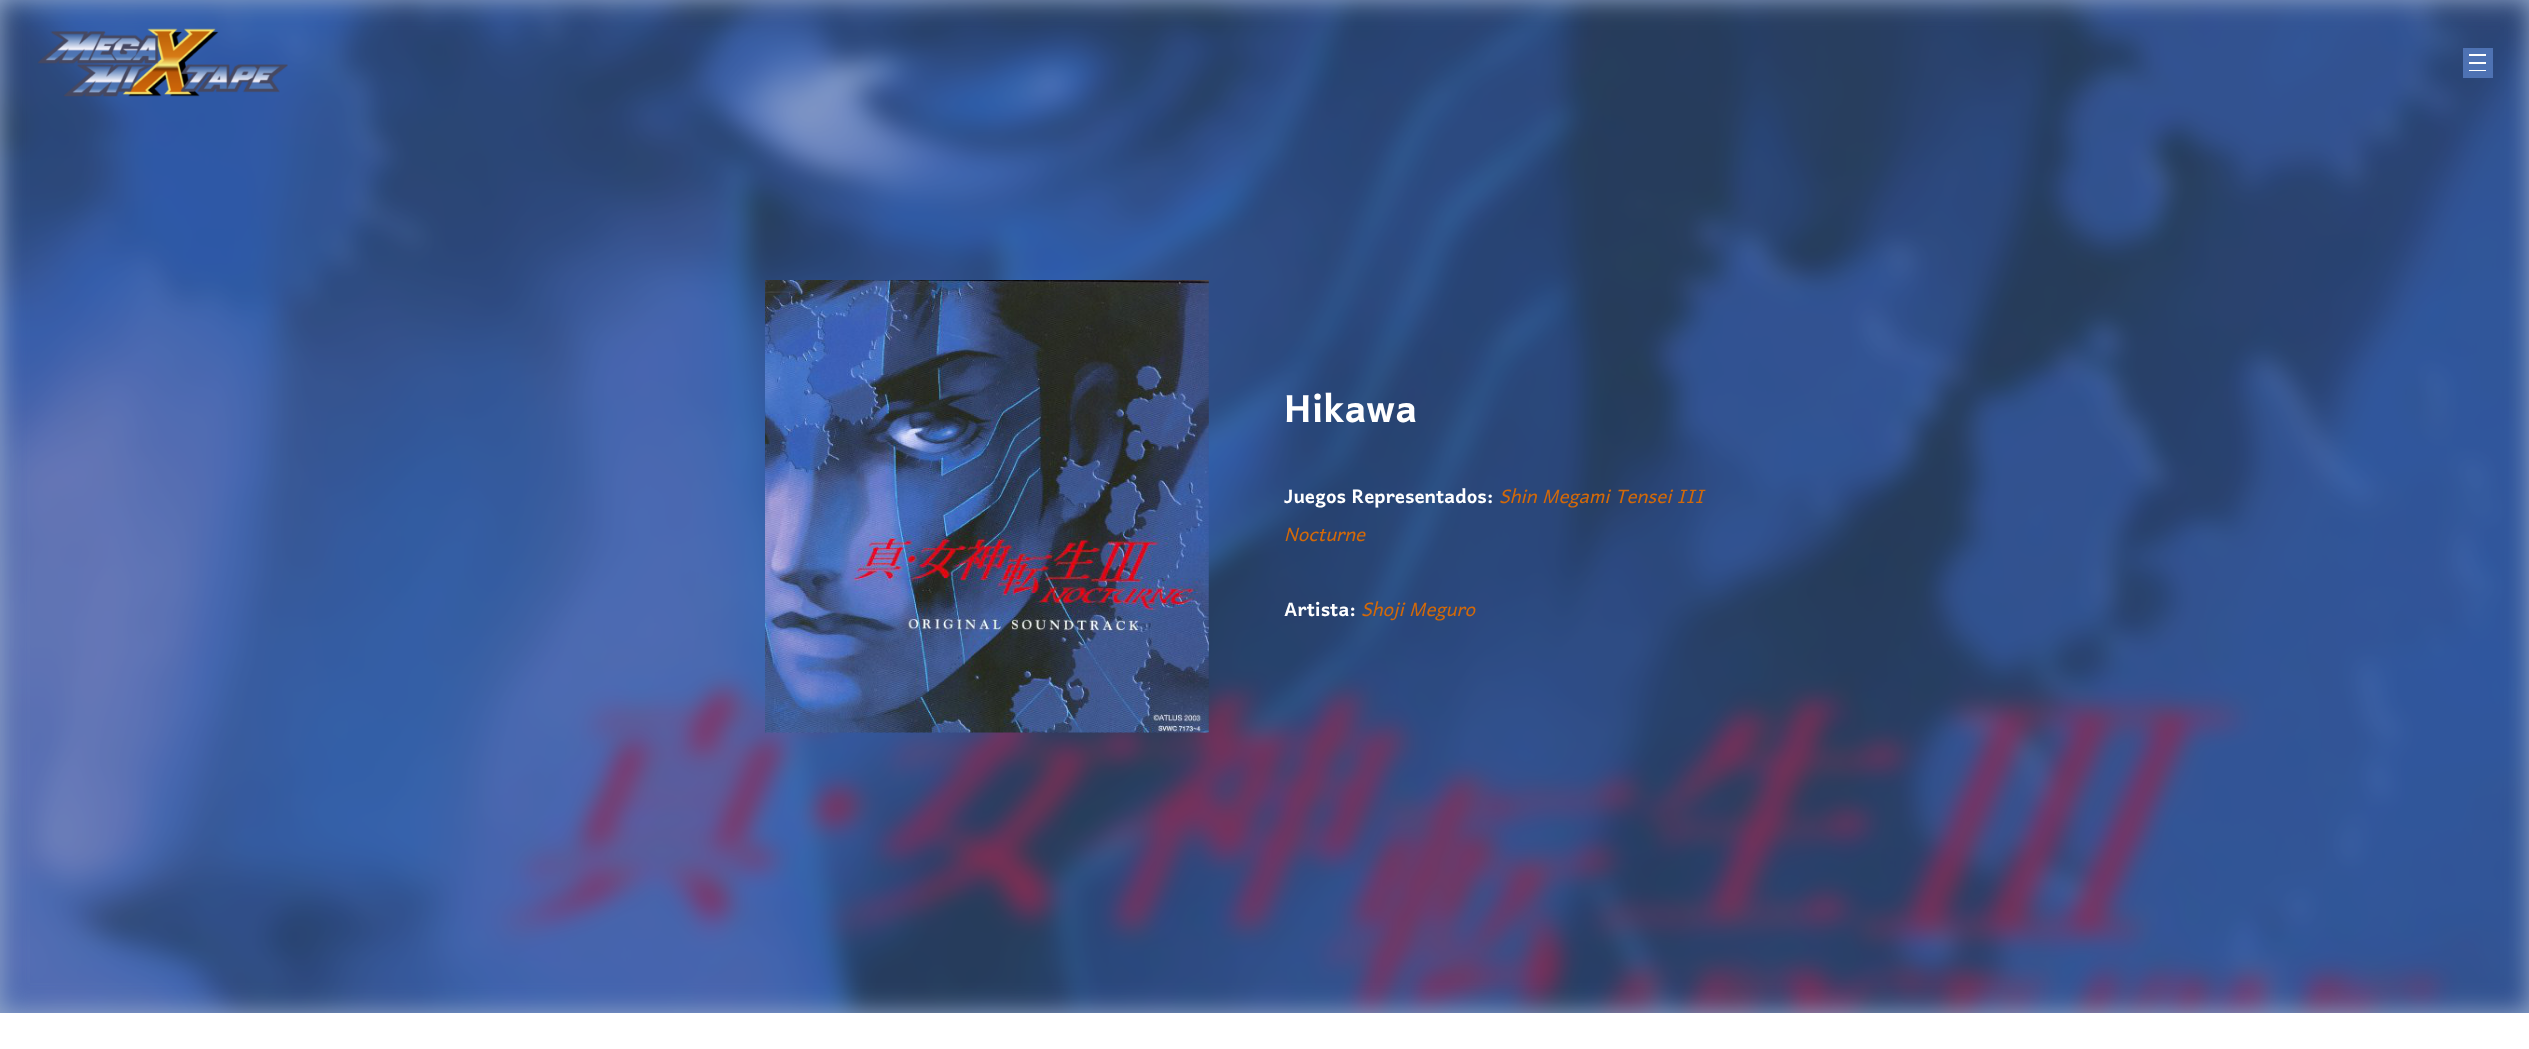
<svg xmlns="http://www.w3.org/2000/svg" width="2529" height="1049">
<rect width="100%" height="100%" fill="#92a7ca"/>
<image x="0" y="0" width="2529" height="1013" href="media/2.png"/>
<image x="37" y="28" width="251" height="69" href="media/1.png"/>
<rect x="2463" y="48" width="30" height="30" fill="#4e72b3"/>
<rect x="2469" y="54" width="17" height="2" fill="#fff"/>
<rect x="2469" y="62" width="17" height="2" fill="#fff"/>
<rect x="2469" y="70" width="17" height="1" fill="#fff"/>
<image x="765" y="280" width="444" height="453" href="media/3.png"/>
<text x="1284" y="422" style="font-family:Harmattan;font-size:50px;font-weight:bold;fill:#fff">Hikawa</text>
<text x="1284" y="503" style="font-family:Harmattan;font-size:25px;font-weight:bold;fill:#fff">Juegos Representados:</text>
<text x="1499" y="503" style="font-family:Harmattan;font-size:25px;font-style:italic;fill:#d26909">Shin Megami Tensei III</text>
<text x="1284" y="541" style="font-family:Harmattan;font-size:25px;font-style:italic;fill:#d26909">Nocturne</text>
<text x="1284" y="616" style="font-family:Harmattan;font-size:25px;font-weight:bold;fill:#fff">Artista:</text>
<text x="1361" y="616" style="font-family:Harmattan;font-size:25px;font-style:italic;fill:#d26909">Shoji Meguro</text>
<rect y="1013" width="2529" height="36" fill="#fff"/>
</svg>
